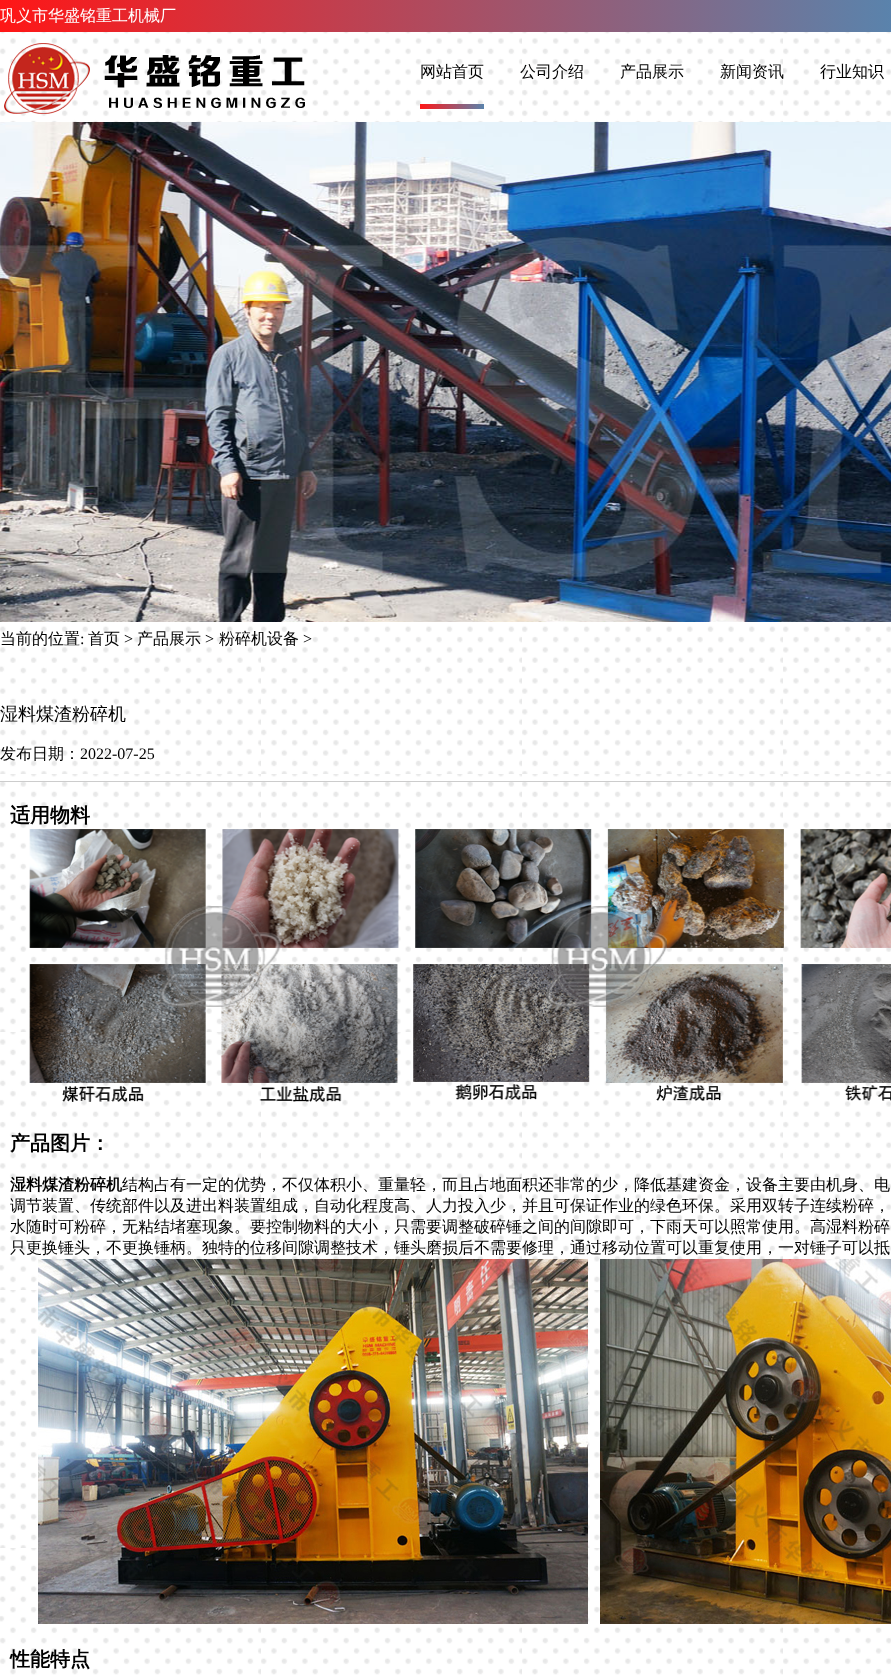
<svg xmlns="http://www.w3.org/2000/svg" width="891" height="1678">
<defs>
<linearGradient id="g1" gradientUnits="userSpaceOnUse" x1="0" y1="16" x2="891" y2="16"><stop offset="0" stop-color="#ff1616"/><stop offset="1" stop-color="#5a83ac"/></linearGradient>
<linearGradient id="g2" gradientUnits="userSpaceOnUse" x1="420" y1="107" x2="484" y2="107"><stop offset="0" stop-color="#ff1616"/><stop offset="1" stop-color="#5a83ac"/></linearGradient>
</defs>
<rect width="100%" height="100%" fill="#fff"/>
<image x="0" y="32" width="891" height="1643" href="media/1.png"/>
<rect width="891" height="32" fill="url(#g1)"/>
<text x="0" y="21" style="font-family:WenQuanYi Zen Hei;font-size:16px;font-weight:500;fill:#fff">巩义市华盛铭重工机械厂</text>
<image x="4" y="43" width="301" height="71" href="media/2.png"/>
<text x="420" y="77" style="font-family:WenQuanYi Zen Hei;font-size:16px;font-weight:500;fill:#000">网站首页</text>
<rect x="420" y="104" width="64" height="5" fill="url(#g2)"/>
<text x="520" y="77" style="font-family:WenQuanYi Zen Hei;font-size:16px;font-weight:500;fill:#000">公司介绍</text>
<text x="620" y="77" style="font-family:WenQuanYi Zen Hei;font-size:16px;font-weight:500;fill:#000">产品展示</text>
<text x="720" y="77" style="font-family:WenQuanYi Zen Hei;font-size:16px;font-weight:500;fill:#000">新闻资讯</text>
<text x="820" y="77" style="font-family:WenQuanYi Zen Hei;font-size:16px;font-weight:500;fill:#000">行业知识</text>
<image x="0" y="122" width="891" height="500" href="media/3.png"/>
<text x="0" y="644" style="font-family:WenQuanYi Zen Hei;font-size:16px;font-weight:500;fill:#000">当前的位置</text>
<text x="80" y="644" style="font-family:Liberation Serif;font-size:16px;fill:#000">:</text>
<text x="88" y="644" style="font-family:WenQuanYi Zen Hei;font-size:16px;font-weight:500;fill:#000">首页</text>
<text x="124" y="644" style="font-family:Liberation Serif;font-size:16px;fill:#000">&gt;</text>
<text x="137" y="644" style="font-family:WenQuanYi Zen Hei;font-size:16px;font-weight:500;fill:#000">产品展示</text>
<text x="205" y="644" style="font-family:Liberation Serif;font-size:16px;fill:#000">&gt;</text>
<text x="219" y="644" style="font-family:WenQuanYi Zen Hei;font-size:16px;font-weight:500;fill:#000">粉碎机设备</text>
<text x="303" y="644" style="font-family:Liberation Serif;font-size:16px;fill:#000">&gt;</text>
<rect y="781" width="891" height="1" fill="#ccc"/>
<text x="0" y="720" style="font-family:WenQuanYi Zen Hei;font-size:18px;font-weight:500;fill:#000">湿料煤渣粉碎机</text>
<text x="0" y="759" style="font-family:WenQuanYi Zen Hei;font-size:16px;font-weight:500;fill:#000">发布日期：</text>
<text x="80" y="759" style="font-family:Liberation Serif;font-size:16px;fill:#000">2022-07-25</text>
<text x="10" y="822" style="font-family:WenQuanYi Zen Hei;font-size:20px;font-weight:bold;fill:#000">适用物料</text>
<image x="29" y="829" width="862" height="273" href="media/4.png"/>
<text x="10" y="1150" style="font-family:WenQuanYi Zen Hei;font-size:20px;font-weight:bold;fill:#000">产品图片：</text>
<text x="10" y="1190" style="font-family:WenQuanYi Zen Hei;font-size:16px;font-weight:bold;fill:#000">湿料煤渣粉碎机</text>
<text x="122" y="1190" style="font-family:WenQuanYi Zen Hei;font-size:16px;font-weight:500;fill:#000">结构占有一定的优势，不仅体积小、重量轻，而且占地面积还非常的少，降低基建资金，设备主要由机身、电</text>
<text x="10" y="1211" style="font-family:WenQuanYi Zen Hei;font-size:16px;font-weight:500;fill:#000">调节装置、传统部件以及进出料装置组成，自动化程度高、人力投入少，并且可保证作业的绿色环保。采用双转子连续粉碎，</text>
<text x="10" y="1232" style="font-family:WenQuanYi Zen Hei;font-size:16px;font-weight:500;fill:#000">水随时可粉碎，无粘结堵塞现象。要控制物料的大小，只需要调整破碎锤之间的间隙即可，下雨天可以照常使用。高湿料粉碎</text>
<text x="10" y="1253" style="font-family:WenQuanYi Zen Hei;font-size:16px;font-weight:500;fill:#000">只更换锤头，不更换锤柄。独特的位移间隙调整技术，锤头磨损后不需要修理，通过移动位置可以重复使用，一对锤子可以抵</text>
<image x="38" y="1259" width="550" height="365" href="media/5.png"/>
<image x="600" y="1259" width="291" height="365" href="media/6.png"/>
<text x="10" y="1666" style="font-family:WenQuanYi Zen Hei;font-size:20px;font-weight:bold;fill:#000">性能特点</text>
</svg>
